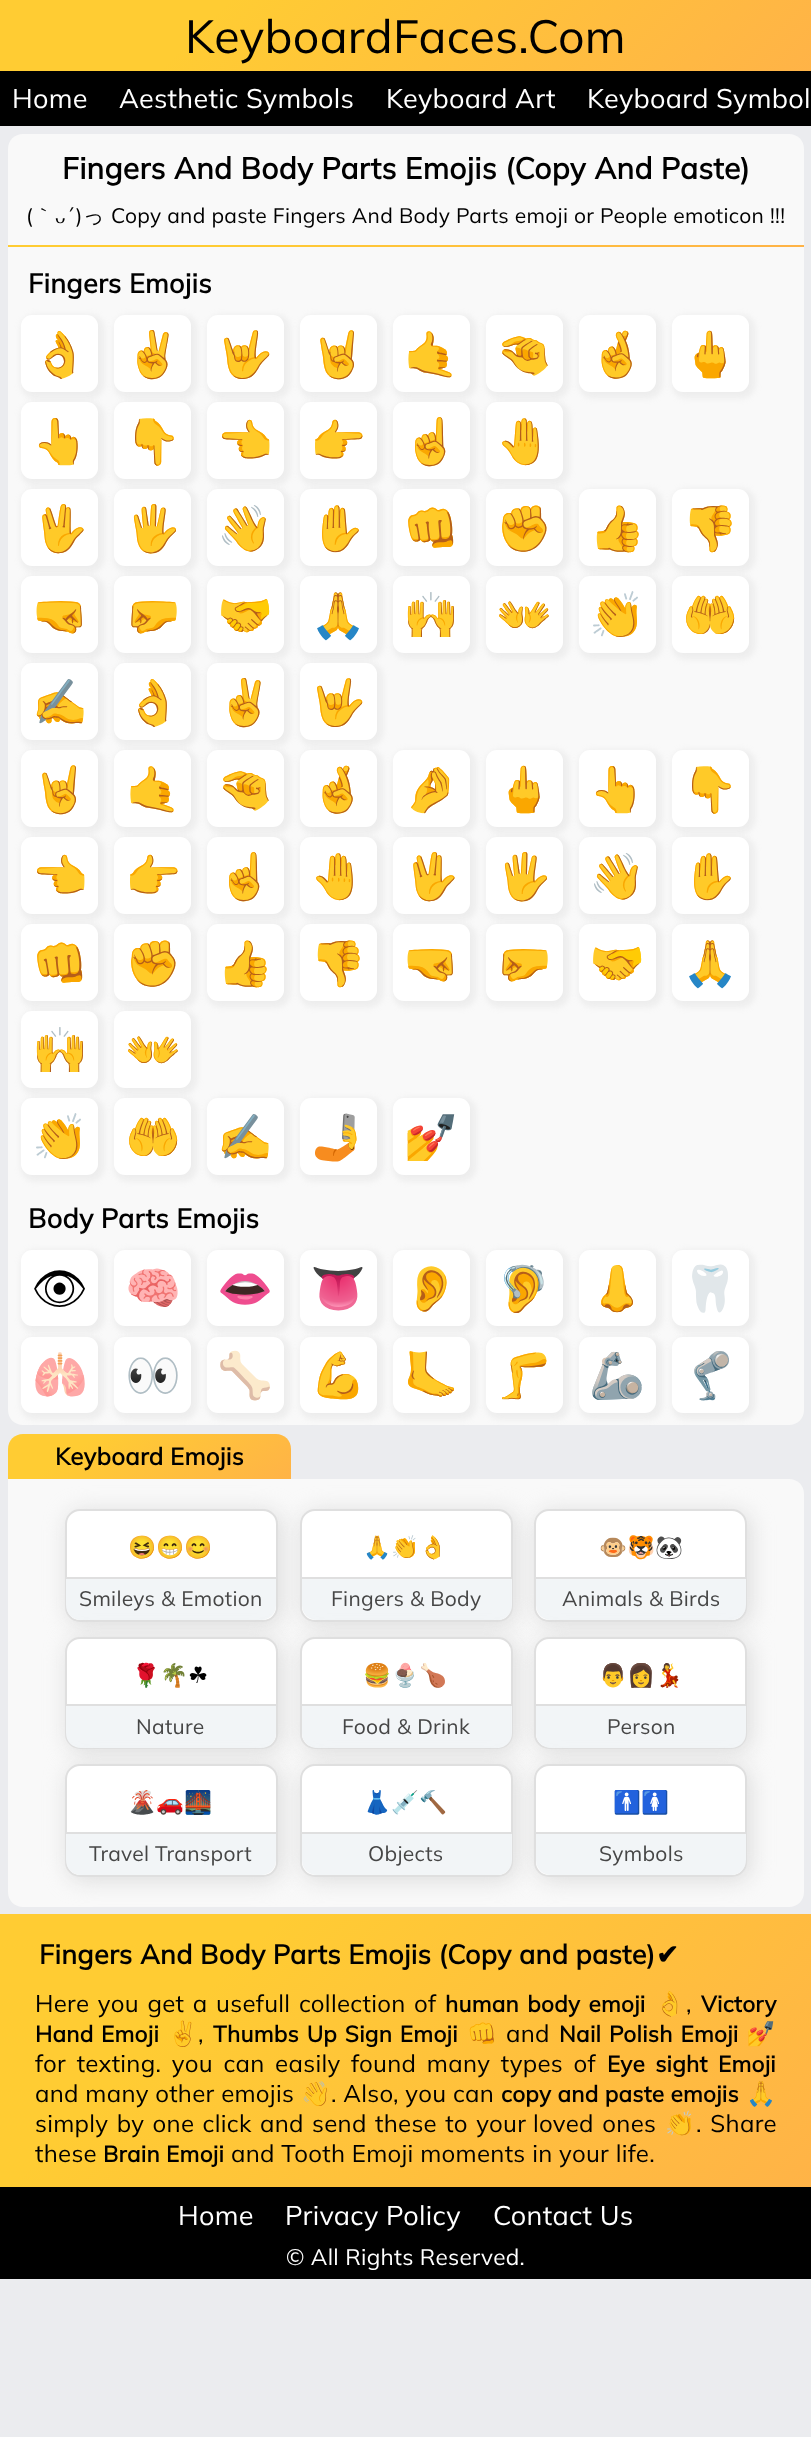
<svg xmlns="http://www.w3.org/2000/svg" width="811" height="2437">
<defs>
<linearGradient id="g1" gradientUnits="userSpaceOnUse" x1="626" y1="256" x2="185" y2="-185"><stop offset="0" stop-color="#ffb347"/><stop offset="0.74" stop-color="#fc3"/></linearGradient>
<linearGradient id="g2" gradientUnits="userSpaceOnUse" x1="605" y1="445" x2="206" y2="46"><stop offset="0" stop-color="#ffb347"/><stop offset="0.74" stop-color="#fc3"/></linearGradient>
<linearGradient id="g3" gradientUnits="userSpaceOnUse" x1="204" y1="1538" x2="94" y2="1375"><stop offset="0" stop-color="#ffb347"/><stop offset="0.74" stop-color="#fc3"/></linearGradient>
<linearGradient id="g4" gradientUnits="userSpaceOnUse" x1="677" y1="2322" x2="135" y2="1779"><stop offset="0" stop-color="#ffb347"/><stop offset="0.74" stop-color="#fc3"/></linearGradient>
</defs>
<rect width="100%" height="100%" fill="#ebecef"/>
<rect width="811" height="71" fill="url(#g1)"/>
<text x="185" y="53" style="font-family:Mulish;font-size:46.5px;font-weight:200;letter-spacing:0.3px;fill:#000">KeyboardFaces.Com</text>
<rect y="71" width="811" height="55" fill="#000"/>
<text x="12" y="108" style="font-family:Mulish;font-size:27px;font-weight:200;letter-spacing:0.3px;fill:#fff">Home</text>
<text x="119" y="108" style="font-family:Mulish;font-size:27px;font-weight:200;letter-spacing:0.3px;fill:#fff">Aesthetic Symbols</text>
<text x="386" y="108" style="font-family:Mulish;font-size:27px;font-weight:200;letter-spacing:0.3px;fill:#fff">Keyboard Art</text>
<text x="587" y="108" style="font-family:Mulish;font-size:27px;font-weight:200;letter-spacing:0.3px;fill:#fff">Keyboard Symbol</text>
<path d="M23 134h766c8.5 0 15 6.5 15 15v52h-796v-52c0-8.5 6.5-15 15-15z" fill="#f9f9f9"/>
<text x="62" y="179" style="font-family:Mulish;font-size:30px;font-weight:bold;letter-spacing:0.3px;fill:#000">Fingers And Body Parts Emojis (Copy And Paste)</text>
<path d="M8 201h796v1209c0 8.5-6.5 15-15 15h-766c-8.5 0-15-6.5-15-15z" fill="#f9f9f9"/>
<text x="26" y="223" style="font-family:Mulish;font-size:21px;font-weight:200;letter-spacing:0.3px;fill:#000">(</text>
<text x="33" y="223" style="font-family:WenQuanYi Zen Hei;font-size:21px;font-weight:500;letter-spacing:0.3px;fill:#000">｀</text>
<text x="65" y="223" style="font-family:Mulish;font-size:21px;font-weight:200;letter-spacing:0.3px;fill:#000">´)</text>
<text x="111" y="223" style="font-family:Mulish;font-size:21px;font-weight:200;letter-spacing:0.3px;fill:#000">Copy and paste Fingers And Body Parts emoji or People emoticon !!!</text>
<text x="55" y="223" style="font-family:Liberation Serif;font-size:21px;letter-spacing:0.3px;fill:#000">ᴗ</text>
<text x="83" y="223" style="font-family:WenQuanYi Zen Hei;font-size:21px;font-weight:500;letter-spacing:0.3px;fill:#000">っ</text>
<rect x="8" y="245" width="796" height="2" fill="url(#g2)"/>
<text x="28" y="293" style="font-family:Mulish;font-size:27px;font-weight:bold;letter-spacing:0.3px;fill:#000">Fingers Emojis</text>
<rect x="21" y="315" width="83" height="83" rx="14" fill="#bfbfbf33" filter="blur(3px)"/>
<rect x="21" y="315" width="77" height="77" rx="11" fill="#fff"/>
<text x="32" y="370" style="font-family:Noto Color Emoji;font-size:45px;letter-spacing:0.3px;fill:#000">👌</text>
<rect x="114" y="315" width="83" height="83" rx="14" fill="#bfbfbf33" filter="blur(3px)"/>
<rect x="114" y="315" width="77" height="77" rx="11" fill="#fff"/>
<text x="125" y="370" style="font-family:Noto Color Emoji;font-size:45px;letter-spacing:0.3px;fill:#000">✌</text>
<rect x="207" y="315" width="83" height="83" rx="14" fill="#bfbfbf33" filter="blur(3px)"/>
<rect x="207" y="315" width="77" height="77" rx="11" fill="#fff"/>
<text x="217" y="370" style="font-family:Noto Color Emoji;font-size:45px;letter-spacing:0.3px;fill:#000">🤟</text>
<rect x="300" y="315" width="83" height="83" rx="14" fill="#bfbfbf33" filter="blur(3px)"/>
<rect x="300" y="315" width="77" height="77" rx="11" fill="#fff"/>
<text x="310" y="370" style="font-family:Noto Color Emoji;font-size:45px;letter-spacing:0.3px;fill:#000">🤘</text>
<rect x="393" y="315" width="83" height="83" rx="14" fill="#bfbfbf33" filter="blur(3px)"/>
<rect x="393" y="315" width="77" height="77" rx="11" fill="#fff"/>
<text x="403" y="370" style="font-family:Noto Color Emoji;font-size:45px;letter-spacing:0.3px;fill:#000">🤙</text>
<rect x="486" y="315" width="83" height="83" rx="14" fill="#bfbfbf33" filter="blur(3px)"/>
<rect x="486" y="315" width="77" height="77" rx="11" fill="#fff"/>
<text x="496" y="370" style="font-family:Noto Color Emoji;font-size:45px;letter-spacing:0.3px;fill:#000">🤏</text>
<rect x="579" y="315" width="83" height="83" rx="14" fill="#bfbfbf33" filter="blur(3px)"/>
<rect x="579" y="315" width="77" height="77" rx="11" fill="#fff"/>
<text x="589" y="370" style="font-family:Noto Color Emoji;font-size:45px;letter-spacing:0.3px;fill:#000">🤞</text>
<rect x="672" y="315" width="83" height="83" rx="14" fill="#bfbfbf33" filter="blur(3px)"/>
<rect x="672" y="315" width="77" height="77" rx="11" fill="#fff"/>
<text x="682" y="370" style="font-family:Noto Color Emoji;font-size:45px;letter-spacing:0.3px;fill:#000">🖕</text>
<rect x="21" y="402" width="83" height="83" rx="14" fill="#bfbfbf33" filter="blur(3px)"/>
<rect x="21" y="402" width="77" height="77" rx="11" fill="#fff"/>
<text x="32" y="457" style="font-family:Noto Color Emoji;font-size:45px;letter-spacing:0.3px;fill:#000">👆</text>
<rect x="114" y="402" width="83" height="83" rx="14" fill="#bfbfbf33" filter="blur(3px)"/>
<rect x="114" y="402" width="77" height="77" rx="11" fill="#fff"/>
<text x="125" y="457" style="font-family:Noto Color Emoji;font-size:45px;letter-spacing:0.3px;fill:#000">👇</text>
<rect x="207" y="402" width="83" height="83" rx="14" fill="#bfbfbf33" filter="blur(3px)"/>
<rect x="207" y="402" width="77" height="77" rx="11" fill="#fff"/>
<text x="217" y="457" style="font-family:Noto Color Emoji;font-size:45px;letter-spacing:0.3px;fill:#000">👈</text>
<rect x="300" y="402" width="83" height="83" rx="14" fill="#bfbfbf33" filter="blur(3px)"/>
<rect x="300" y="402" width="77" height="77" rx="11" fill="#fff"/>
<text x="310" y="457" style="font-family:Noto Color Emoji;font-size:45px;letter-spacing:0.3px;fill:#000">👉</text>
<rect x="393" y="402" width="83" height="83" rx="14" fill="#bfbfbf33" filter="blur(3px)"/>
<rect x="393" y="402" width="77" height="77" rx="11" fill="#fff"/>
<text x="403" y="457" style="font-family:Noto Color Emoji;font-size:45px;letter-spacing:0.3px;fill:#000">☝</text>
<rect x="486" y="402" width="83" height="83" rx="14" fill="#bfbfbf33" filter="blur(3px)"/>
<rect x="486" y="402" width="77" height="77" rx="11" fill="#fff"/>
<text x="496" y="457" style="font-family:Noto Color Emoji;font-size:45px;letter-spacing:0.3px;fill:#000">🤚</text>
<rect x="21" y="489" width="83" height="83" rx="14" fill="#bfbfbf33" filter="blur(3px)"/>
<rect x="21" y="489" width="77" height="77" rx="11" fill="#fff"/>
<text x="32" y="544" style="font-family:Noto Color Emoji;font-size:45px;letter-spacing:0.3px;fill:#000">🖖</text>
<rect x="114" y="489" width="83" height="83" rx="14" fill="#bfbfbf33" filter="blur(3px)"/>
<rect x="114" y="489" width="77" height="77" rx="11" fill="#fff"/>
<text x="125" y="544" style="font-family:Noto Color Emoji;font-size:45px;letter-spacing:0.3px;fill:#000">🖐</text>
<rect x="207" y="489" width="83" height="83" rx="14" fill="#bfbfbf33" filter="blur(3px)"/>
<rect x="207" y="489" width="77" height="77" rx="11" fill="#fff"/>
<text x="217" y="544" style="font-family:Noto Color Emoji;font-size:45px;letter-spacing:0.3px;fill:#000">👋</text>
<rect x="300" y="489" width="83" height="83" rx="14" fill="#bfbfbf33" filter="blur(3px)"/>
<rect x="300" y="489" width="77" height="77" rx="11" fill="#fff"/>
<text x="310" y="544" style="font-family:Noto Color Emoji;font-size:45px;letter-spacing:0.3px;fill:#000">✋</text>
<rect x="393" y="489" width="83" height="83" rx="14" fill="#bfbfbf33" filter="blur(3px)"/>
<rect x="393" y="489" width="77" height="77" rx="11" fill="#fff"/>
<text x="403" y="544" style="font-family:Noto Color Emoji;font-size:45px;letter-spacing:0.3px;fill:#000">👊</text>
<rect x="486" y="489" width="83" height="83" rx="14" fill="#bfbfbf33" filter="blur(3px)"/>
<rect x="486" y="489" width="77" height="77" rx="11" fill="#fff"/>
<text x="496" y="544" style="font-family:Noto Color Emoji;font-size:45px;letter-spacing:0.3px;fill:#000">✊</text>
<rect x="579" y="489" width="83" height="83" rx="14" fill="#bfbfbf33" filter="blur(3px)"/>
<rect x="579" y="489" width="77" height="77" rx="11" fill="#fff"/>
<text x="589" y="544" style="font-family:Noto Color Emoji;font-size:45px;letter-spacing:0.3px;fill:#000">👍</text>
<rect x="672" y="489" width="83" height="83" rx="14" fill="#bfbfbf33" filter="blur(3px)"/>
<rect x="672" y="489" width="77" height="77" rx="11" fill="#fff"/>
<text x="682" y="544" style="font-family:Noto Color Emoji;font-size:45px;letter-spacing:0.3px;fill:#000">👎</text>
<rect x="21" y="576" width="83" height="83" rx="14" fill="#bfbfbf33" filter="blur(3px)"/>
<rect x="21" y="576" width="77" height="77" rx="11" fill="#fff"/>
<text x="32" y="631" style="font-family:Noto Color Emoji;font-size:45px;letter-spacing:0.3px;fill:#000">🤜</text>
<rect x="114" y="576" width="83" height="83" rx="14" fill="#bfbfbf33" filter="blur(3px)"/>
<rect x="114" y="576" width="77" height="77" rx="11" fill="#fff"/>
<text x="125" y="631" style="font-family:Noto Color Emoji;font-size:45px;letter-spacing:0.3px;fill:#000">🤛</text>
<rect x="207" y="576" width="83" height="83" rx="14" fill="#bfbfbf33" filter="blur(3px)"/>
<rect x="207" y="576" width="77" height="77" rx="11" fill="#fff"/>
<text x="217" y="631" style="font-family:Noto Color Emoji;font-size:45px;letter-spacing:0.3px;fill:#000">🤝</text>
<rect x="300" y="576" width="83" height="83" rx="14" fill="#bfbfbf33" filter="blur(3px)"/>
<rect x="300" y="576" width="77" height="77" rx="11" fill="#fff"/>
<text x="310" y="631" style="font-family:Noto Color Emoji;font-size:45px;letter-spacing:0.3px;fill:#000">🙏</text>
<rect x="393" y="576" width="83" height="83" rx="14" fill="#bfbfbf33" filter="blur(3px)"/>
<rect x="393" y="576" width="77" height="77" rx="11" fill="#fff"/>
<text x="403" y="631" style="font-family:Noto Color Emoji;font-size:45px;letter-spacing:0.3px;fill:#000">🙌</text>
<rect x="486" y="576" width="83" height="83" rx="14" fill="#bfbfbf33" filter="blur(3px)"/>
<rect x="486" y="576" width="77" height="77" rx="11" fill="#fff"/>
<text x="496" y="631" style="font-family:Noto Color Emoji;font-size:45px;letter-spacing:0.3px;fill:#000">👐</text>
<rect x="579" y="576" width="83" height="83" rx="14" fill="#bfbfbf33" filter="blur(3px)"/>
<rect x="579" y="576" width="77" height="77" rx="11" fill="#fff"/>
<text x="589" y="631" style="font-family:Noto Color Emoji;font-size:45px;letter-spacing:0.3px;fill:#000">👏</text>
<rect x="672" y="576" width="83" height="83" rx="14" fill="#bfbfbf33" filter="blur(3px)"/>
<rect x="672" y="576" width="77" height="77" rx="11" fill="#fff"/>
<text x="682" y="631" style="font-family:Noto Color Emoji;font-size:45px;letter-spacing:0.3px;fill:#000">🤲</text>
<rect x="21" y="663" width="83" height="83" rx="14" fill="#bfbfbf33" filter="blur(3px)"/>
<rect x="21" y="663" width="77" height="77" rx="11" fill="#fff"/>
<text x="32" y="718" style="font-family:Noto Color Emoji;font-size:45px;letter-spacing:0.3px;fill:#000">✍</text>
<rect x="114" y="663" width="83" height="83" rx="14" fill="#bfbfbf33" filter="blur(3px)"/>
<rect x="114" y="663" width="77" height="77" rx="11" fill="#fff"/>
<text x="125" y="718" style="font-family:Noto Color Emoji;font-size:45px;letter-spacing:0.3px;fill:#000">👌</text>
<rect x="207" y="663" width="83" height="83" rx="14" fill="#bfbfbf33" filter="blur(3px)"/>
<rect x="207" y="663" width="77" height="77" rx="11" fill="#fff"/>
<text x="217" y="718" style="font-family:Noto Color Emoji;font-size:45px;letter-spacing:0.3px;fill:#000">✌</text>
<rect x="300" y="663" width="83" height="83" rx="14" fill="#bfbfbf33" filter="blur(3px)"/>
<rect x="300" y="663" width="77" height="77" rx="11" fill="#fff"/>
<text x="310" y="718" style="font-family:Noto Color Emoji;font-size:45px;letter-spacing:0.3px;fill:#000">🤟</text>
<rect x="21" y="750" width="83" height="83" rx="14" fill="#bfbfbf33" filter="blur(3px)"/>
<rect x="21" y="750" width="77" height="77" rx="11" fill="#fff"/>
<text x="32" y="805" style="font-family:Noto Color Emoji;font-size:45px;letter-spacing:0.3px;fill:#000">🤘</text>
<rect x="114" y="750" width="83" height="83" rx="14" fill="#bfbfbf33" filter="blur(3px)"/>
<rect x="114" y="750" width="77" height="77" rx="11" fill="#fff"/>
<text x="125" y="805" style="font-family:Noto Color Emoji;font-size:45px;letter-spacing:0.3px;fill:#000">🤙</text>
<rect x="207" y="750" width="83" height="83" rx="14" fill="#bfbfbf33" filter="blur(3px)"/>
<rect x="207" y="750" width="77" height="77" rx="11" fill="#fff"/>
<text x="217" y="805" style="font-family:Noto Color Emoji;font-size:45px;letter-spacing:0.3px;fill:#000">🤏</text>
<rect x="300" y="750" width="83" height="83" rx="14" fill="#bfbfbf33" filter="blur(3px)"/>
<rect x="300" y="750" width="77" height="77" rx="11" fill="#fff"/>
<text x="310" y="805" style="font-family:Noto Color Emoji;font-size:45px;letter-spacing:0.3px;fill:#000">🤞</text>
<rect x="393" y="750" width="83" height="83" rx="14" fill="#bfbfbf33" filter="blur(3px)"/>
<rect x="393" y="750" width="77" height="77" rx="11" fill="#fff"/>
<text x="403" y="805" style="font-family:Noto Color Emoji;font-size:45px;letter-spacing:0.3px;fill:#000">🤌</text>
<rect x="486" y="750" width="83" height="83" rx="14" fill="#bfbfbf33" filter="blur(3px)"/>
<rect x="486" y="750" width="77" height="77" rx="11" fill="#fff"/>
<text x="496" y="805" style="font-family:Noto Color Emoji;font-size:45px;letter-spacing:0.3px;fill:#000">🖕</text>
<rect x="579" y="750" width="83" height="83" rx="14" fill="#bfbfbf33" filter="blur(3px)"/>
<rect x="579" y="750" width="77" height="77" rx="11" fill="#fff"/>
<text x="589" y="805" style="font-family:Noto Color Emoji;font-size:45px;letter-spacing:0.3px;fill:#000">👆</text>
<rect x="672" y="750" width="83" height="83" rx="14" fill="#bfbfbf33" filter="blur(3px)"/>
<rect x="672" y="750" width="77" height="77" rx="11" fill="#fff"/>
<text x="682" y="805" style="font-family:Noto Color Emoji;font-size:45px;letter-spacing:0.3px;fill:#000">👇</text>
<rect x="21" y="837" width="83" height="83" rx="14" fill="#bfbfbf33" filter="blur(3px)"/>
<rect x="21" y="837" width="77" height="77" rx="11" fill="#fff"/>
<text x="32" y="892" style="font-family:Noto Color Emoji;font-size:45px;letter-spacing:0.3px;fill:#000">👈</text>
<rect x="114" y="837" width="83" height="83" rx="14" fill="#bfbfbf33" filter="blur(3px)"/>
<rect x="114" y="837" width="77" height="77" rx="11" fill="#fff"/>
<text x="125" y="892" style="font-family:Noto Color Emoji;font-size:45px;letter-spacing:0.3px;fill:#000">👉</text>
<rect x="207" y="837" width="83" height="83" rx="14" fill="#bfbfbf33" filter="blur(3px)"/>
<rect x="207" y="837" width="77" height="77" rx="11" fill="#fff"/>
<text x="217" y="892" style="font-family:Noto Color Emoji;font-size:45px;letter-spacing:0.3px;fill:#000">☝</text>
<rect x="300" y="837" width="83" height="83" rx="14" fill="#bfbfbf33" filter="blur(3px)"/>
<rect x="300" y="837" width="77" height="77" rx="11" fill="#fff"/>
<text x="310" y="892" style="font-family:Noto Color Emoji;font-size:45px;letter-spacing:0.3px;fill:#000">🤚</text>
<rect x="393" y="837" width="83" height="83" rx="14" fill="#bfbfbf33" filter="blur(3px)"/>
<rect x="393" y="837" width="77" height="77" rx="11" fill="#fff"/>
<text x="403" y="892" style="font-family:Noto Color Emoji;font-size:45px;letter-spacing:0.3px;fill:#000">🖖</text>
<rect x="486" y="837" width="83" height="83" rx="14" fill="#bfbfbf33" filter="blur(3px)"/>
<rect x="486" y="837" width="77" height="77" rx="11" fill="#fff"/>
<text x="496" y="892" style="font-family:Noto Color Emoji;font-size:45px;letter-spacing:0.3px;fill:#000">🖐</text>
<rect x="579" y="837" width="83" height="83" rx="14" fill="#bfbfbf33" filter="blur(3px)"/>
<rect x="579" y="837" width="77" height="77" rx="11" fill="#fff"/>
<text x="589" y="892" style="font-family:Noto Color Emoji;font-size:45px;letter-spacing:0.3px;fill:#000">👋</text>
<rect x="672" y="837" width="83" height="83" rx="14" fill="#bfbfbf33" filter="blur(3px)"/>
<rect x="672" y="837" width="77" height="77" rx="11" fill="#fff"/>
<text x="682" y="892" style="font-family:Noto Color Emoji;font-size:45px;letter-spacing:0.3px;fill:#000">✋</text>
<rect x="21" y="924" width="83" height="83" rx="14" fill="#bfbfbf33" filter="blur(3px)"/>
<rect x="21" y="924" width="77" height="77" rx="11" fill="#fff"/>
<text x="32" y="979" style="font-family:Noto Color Emoji;font-size:45px;letter-spacing:0.3px;fill:#000">👊</text>
<rect x="114" y="924" width="83" height="83" rx="14" fill="#bfbfbf33" filter="blur(3px)"/>
<rect x="114" y="924" width="77" height="77" rx="11" fill="#fff"/>
<text x="125" y="979" style="font-family:Noto Color Emoji;font-size:45px;letter-spacing:0.3px;fill:#000">✊</text>
<rect x="207" y="924" width="83" height="83" rx="14" fill="#bfbfbf33" filter="blur(3px)"/>
<rect x="207" y="924" width="77" height="77" rx="11" fill="#fff"/>
<text x="217" y="979" style="font-family:Noto Color Emoji;font-size:45px;letter-spacing:0.3px;fill:#000">👍</text>
<rect x="300" y="924" width="83" height="83" rx="14" fill="#bfbfbf33" filter="blur(3px)"/>
<rect x="300" y="924" width="77" height="77" rx="11" fill="#fff"/>
<text x="310" y="979" style="font-family:Noto Color Emoji;font-size:45px;letter-spacing:0.3px;fill:#000">👎</text>
<rect x="393" y="924" width="83" height="83" rx="14" fill="#bfbfbf33" filter="blur(3px)"/>
<rect x="393" y="924" width="77" height="77" rx="11" fill="#fff"/>
<text x="403" y="979" style="font-family:Noto Color Emoji;font-size:45px;letter-spacing:0.3px;fill:#000">🤜</text>
<rect x="486" y="924" width="83" height="83" rx="14" fill="#bfbfbf33" filter="blur(3px)"/>
<rect x="486" y="924" width="77" height="77" rx="11" fill="#fff"/>
<text x="496" y="979" style="font-family:Noto Color Emoji;font-size:45px;letter-spacing:0.3px;fill:#000">🤛</text>
<rect x="579" y="924" width="83" height="83" rx="14" fill="#bfbfbf33" filter="blur(3px)"/>
<rect x="579" y="924" width="77" height="77" rx="11" fill="#fff"/>
<text x="589" y="979" style="font-family:Noto Color Emoji;font-size:45px;letter-spacing:0.3px;fill:#000">🤝</text>
<rect x="672" y="924" width="83" height="83" rx="14" fill="#bfbfbf33" filter="blur(3px)"/>
<rect x="672" y="924" width="77" height="77" rx="11" fill="#fff"/>
<text x="682" y="979" style="font-family:Noto Color Emoji;font-size:45px;letter-spacing:0.3px;fill:#000">🙏</text>
<rect x="21" y="1011" width="83" height="83" rx="14" fill="#bfbfbf33" filter="blur(3px)"/>
<rect x="21" y="1011" width="77" height="77" rx="11" fill="#fff"/>
<text x="32" y="1066" style="font-family:Noto Color Emoji;font-size:45px;letter-spacing:0.3px;fill:#000">🙌</text>
<rect x="114" y="1011" width="83" height="83" rx="14" fill="#bfbfbf33" filter="blur(3px)"/>
<rect x="114" y="1011" width="77" height="77" rx="11" fill="#fff"/>
<text x="125" y="1066" style="font-family:Noto Color Emoji;font-size:45px;letter-spacing:0.3px;fill:#000">👐</text>
<rect x="21" y="1098" width="83" height="83" rx="14" fill="#bfbfbf33" filter="blur(3px)"/>
<rect x="21" y="1098" width="77" height="77" rx="11" fill="#fff"/>
<text x="32" y="1153" style="font-family:Noto Color Emoji;font-size:45px;letter-spacing:0.3px;fill:#000">👏</text>
<rect x="114" y="1098" width="83" height="83" rx="14" fill="#bfbfbf33" filter="blur(3px)"/>
<rect x="114" y="1098" width="77" height="77" rx="11" fill="#fff"/>
<text x="125" y="1153" style="font-family:Noto Color Emoji;font-size:45px;letter-spacing:0.3px;fill:#000">🤲</text>
<rect x="207" y="1098" width="83" height="83" rx="14" fill="#bfbfbf33" filter="blur(3px)"/>
<rect x="207" y="1098" width="77" height="77" rx="11" fill="#fff"/>
<text x="217" y="1153" style="font-family:Noto Color Emoji;font-size:45px;letter-spacing:0.3px;fill:#000">✍</text>
<rect x="300" y="1098" width="83" height="83" rx="14" fill="#bfbfbf33" filter="blur(3px)"/>
<rect x="300" y="1098" width="77" height="77" rx="11" fill="#fff"/>
<text x="310" y="1153" style="font-family:Noto Color Emoji;font-size:45px;letter-spacing:0.3px;fill:#000">🤳</text>
<rect x="393" y="1098" width="83" height="83" rx="14" fill="#bfbfbf33" filter="blur(3px)"/>
<rect x="393" y="1098" width="77" height="77" rx="11" fill="#fff"/>
<text x="403" y="1153" style="font-family:Noto Color Emoji;font-size:45px;letter-spacing:0.3px;fill:#000">💅</text>
<text x="28" y="1228" style="font-family:Mulish;font-size:27px;font-weight:bold;letter-spacing:0.3px;fill:#000">Body Parts Emojis</text>
<rect x="21" y="1250" width="83" height="82" rx="14" fill="#bfbfbf33" filter="blur(3px)"/>
<rect x="21" y="1250" width="77" height="76" rx="11" fill="#fff"/>
<text x="31" y="1304" style="font-family:Noto Emoji;font-size:45px;letter-spacing:0.3px;fill:#000">👁</text>
<rect x="114" y="1250" width="83" height="82" rx="14" fill="#bfbfbf33" filter="blur(3px)"/>
<rect x="114" y="1250" width="77" height="76" rx="11" fill="#fff"/>
<text x="125" y="1304" style="font-family:Noto Color Emoji;font-size:45px;letter-spacing:0.3px;fill:#000">🧠</text>
<rect x="207" y="1250" width="83" height="82" rx="14" fill="#bfbfbf33" filter="blur(3px)"/>
<rect x="207" y="1250" width="77" height="76" rx="11" fill="#fff"/>
<text x="217" y="1304" style="font-family:Noto Color Emoji;font-size:45px;letter-spacing:0.3px;fill:#000">👄</text>
<rect x="300" y="1250" width="83" height="82" rx="14" fill="#bfbfbf33" filter="blur(3px)"/>
<rect x="300" y="1250" width="77" height="76" rx="11" fill="#fff"/>
<text x="310" y="1304" style="font-family:Noto Color Emoji;font-size:45px;letter-spacing:0.3px;fill:#000">👅</text>
<rect x="393" y="1250" width="83" height="82" rx="14" fill="#bfbfbf33" filter="blur(3px)"/>
<rect x="393" y="1250" width="77" height="76" rx="11" fill="#fff"/>
<text x="403" y="1304" style="font-family:Noto Color Emoji;font-size:45px;letter-spacing:0.3px;fill:#000">👂</text>
<rect x="486" y="1250" width="83" height="82" rx="14" fill="#bfbfbf33" filter="blur(3px)"/>
<rect x="486" y="1250" width="77" height="76" rx="11" fill="#fff"/>
<text x="496" y="1304" style="font-family:Noto Color Emoji;font-size:45px;letter-spacing:0.3px;fill:#000">🦻</text>
<rect x="579" y="1250" width="83" height="82" rx="14" fill="#bfbfbf33" filter="blur(3px)"/>
<rect x="579" y="1250" width="77" height="76" rx="11" fill="#fff"/>
<text x="589" y="1304" style="font-family:Noto Color Emoji;font-size:45px;letter-spacing:0.3px;fill:#000">👃</text>
<rect x="672" y="1250" width="83" height="82" rx="14" fill="#bfbfbf33" filter="blur(3px)"/>
<rect x="672" y="1250" width="77" height="76" rx="11" fill="#fff"/>
<text x="682" y="1304" style="font-family:Noto Color Emoji;font-size:45px;letter-spacing:0.3px;fill:#000">🦷</text>
<rect x="21" y="1337" width="83" height="82" rx="14" fill="#bfbfbf33" filter="blur(3px)"/>
<rect x="21" y="1337" width="77" height="76" rx="11" fill="#fff"/>
<text x="32" y="1391" style="font-family:Noto Color Emoji;font-size:45px;letter-spacing:0.3px;fill:#000">🫁</text>
<rect x="114" y="1337" width="83" height="82" rx="14" fill="#bfbfbf33" filter="blur(3px)"/>
<rect x="114" y="1337" width="77" height="76" rx="11" fill="#fff"/>
<text x="125" y="1391" style="font-family:Noto Color Emoji;font-size:45px;letter-spacing:0.3px;fill:#000">👀</text>
<rect x="207" y="1337" width="83" height="82" rx="14" fill="#bfbfbf33" filter="blur(3px)"/>
<rect x="207" y="1337" width="77" height="76" rx="11" fill="#fff"/>
<text x="217" y="1391" style="font-family:Noto Color Emoji;font-size:45px;letter-spacing:0.3px;fill:#000">🦴</text>
<rect x="300" y="1337" width="83" height="82" rx="14" fill="#bfbfbf33" filter="blur(3px)"/>
<rect x="300" y="1337" width="77" height="76" rx="11" fill="#fff"/>
<text x="310" y="1391" style="font-family:Noto Color Emoji;font-size:45px;letter-spacing:0.3px;fill:#000">💪</text>
<rect x="393" y="1337" width="83" height="82" rx="14" fill="#bfbfbf33" filter="blur(3px)"/>
<rect x="393" y="1337" width="77" height="76" rx="11" fill="#fff"/>
<text x="403" y="1391" style="font-family:Noto Color Emoji;font-size:45px;letter-spacing:0.3px;fill:#000">🦶</text>
<rect x="486" y="1337" width="83" height="82" rx="14" fill="#bfbfbf33" filter="blur(3px)"/>
<rect x="486" y="1337" width="77" height="76" rx="11" fill="#fff"/>
<text x="496" y="1391" style="font-family:Noto Color Emoji;font-size:45px;letter-spacing:0.3px;fill:#000">🦵</text>
<rect x="579" y="1337" width="83" height="82" rx="14" fill="#bfbfbf33" filter="blur(3px)"/>
<rect x="579" y="1337" width="77" height="76" rx="11" fill="#fff"/>
<text x="589" y="1391" style="font-family:Noto Color Emoji;font-size:45px;letter-spacing:0.3px;fill:#000">🦾</text>
<rect x="672" y="1337" width="83" height="82" rx="14" fill="#bfbfbf33" filter="blur(3px)"/>
<rect x="672" y="1337" width="77" height="76" rx="11" fill="#fff"/>
<text x="682" y="1391" style="font-family:Noto Color Emoji;font-size:45px;letter-spacing:0.3px;fill:#000">🦿</text>
<path d="M23 1434h253c8.5 0 15 6.5 15 15v30h-283v-30c0-8.5 6.5-15 15-15z" fill="url(#g3)"/>
<text x="55" y="1465" style="font-family:Mulish;font-size:24px;font-weight:bold;letter-spacing:0.3px;fill:#000">Keyboard Emojis</text>
<path d="M8 1479h781c8.5 0 15 6.5 15 15v398c0 8.5-6.5 15-15 15h-766c-8.5 0-15-6.5-15-15z" fill="#f9f9f9"/>
<rect x="68" y="1512" width="213" height="113" rx="15" fill="#dbdbdb" filter="blur(11px)"/>
<rect x="66" y="1510" width="211" height="111" rx="14" fill="#fff" stroke="#dfdfdf" stroke-width="2"/>
<text x="128" y="1555" style="font-family:Noto Color Emoji;font-size:22.5px;letter-spacing:0.3px;fill:#000">😆😁😊</text>
<path d="M66 1577h210v28c0 8.5-6.5 15-15 15h-180c-8.5 0-15-6.5-15-15z" fill="#f2f5f7"/>
<rect x="66" y="1577" width="210" height="2" fill="#dfdfdf"/>
<text x="79" y="1606" style="font-family:Mulish;font-size:21px;font-weight:200;letter-spacing:0.3px;fill:#464646">Smileys &amp; Emotion</text>
<rect x="303" y="1512" width="213" height="113" rx="15" fill="#dbdbdb" filter="blur(11px)"/>
<rect x="301" y="1510" width="211" height="111" rx="14" fill="#fff" stroke="#dfdfdf" stroke-width="2"/>
<text x="363" y="1555" style="font-family:Noto Color Emoji;font-size:22.5px;letter-spacing:0.3px;fill:#000">🙏👏👌</text>
<path d="M302 1577h210v28c0 8.5-6.5 15-15 15h-180c-8.5 0-15-6.5-15-15z" fill="#f2f5f7"/>
<rect x="302" y="1577" width="210" height="2" fill="#dfdfdf"/>
<text x="331" y="1606" style="font-family:Mulish;font-size:21px;font-weight:200;letter-spacing:0.3px;fill:#464646">Fingers &amp; Body</text>
<rect x="537" y="1512" width="213" height="113" rx="15" fill="#dbdbdb" filter="blur(11px)"/>
<rect x="535" y="1510" width="211" height="111" rx="14" fill="#fff" stroke="#dfdfdf" stroke-width="2"/>
<text x="599" y="1555" style="font-family:Noto Color Emoji;font-size:22.5px;letter-spacing:0.3px;fill:#000">🐵🐯🐼</text>
<path d="M536 1577h210v28c0 8.5-6.5 15-15 15h-180c-8.5 0-15-6.5-15-15z" fill="#f2f5f7"/>
<rect x="536" y="1577" width="210" height="2" fill="#dfdfdf"/>
<text x="562" y="1606" style="font-family:Mulish;font-size:21px;font-weight:200;letter-spacing:0.3px;fill:#464646">Animals &amp; Birds</text>
<rect x="68" y="1640" width="213" height="112" rx="15" fill="#dbdbdb" filter="blur(11px)"/>
<rect x="66" y="1638" width="211" height="110" rx="14" fill="#fff" stroke="#dfdfdf" stroke-width="2"/>
<text x="132" y="1683" style="font-family:Noto Color Emoji;font-size:22.5px;letter-spacing:0.3px;fill:#000">🌹🌴</text>
<text x="188" y="1683" style="font-family:DejaVu Sans;font-size:22.5px;letter-spacing:0.3px;fill:#000">☘</text>
<path d="M66 1704h210v29c0 8.5-6.5 15-15 15h-180c-8.5 0-15-6.5-15-15z" fill="#f2f5f7"/>
<rect x="66" y="1704" width="210" height="2" fill="#dfdfdf"/>
<text x="136" y="1734" style="font-family:Mulish;font-size:21px;font-weight:200;letter-spacing:0.3px;fill:#464646">Nature</text>
<rect x="303" y="1640" width="213" height="112" rx="15" fill="#dbdbdb" filter="blur(11px)"/>
<rect x="301" y="1638" width="211" height="110" rx="14" fill="#fff" stroke="#dfdfdf" stroke-width="2"/>
<text x="363" y="1683" style="font-family:Noto Color Emoji;font-size:22.5px;letter-spacing:0.3px;fill:#000">🍔🍨🍗</text>
<path d="M302 1704h210v29c0 8.5-6.5 15-15 15h-180c-8.5 0-15-6.5-15-15z" fill="#f2f5f7"/>
<rect x="302" y="1704" width="210" height="2" fill="#dfdfdf"/>
<text x="342" y="1734" style="font-family:Mulish;font-size:21px;font-weight:200;letter-spacing:0.3px;fill:#464646">Food &amp; Drink</text>
<rect x="537" y="1640" width="213" height="112" rx="15" fill="#dbdbdb" filter="blur(11px)"/>
<rect x="535" y="1638" width="211" height="110" rx="14" fill="#fff" stroke="#dfdfdf" stroke-width="2"/>
<text x="599" y="1683" style="font-family:Noto Color Emoji;font-size:22.5px;letter-spacing:0.3px;fill:#000">👨👩💃</text>
<path d="M536 1704h210v29c0 8.5-6.5 15-15 15h-180c-8.5 0-15-6.5-15-15z" fill="#f2f5f7"/>
<rect x="536" y="1704" width="210" height="2" fill="#dfdfdf"/>
<text x="607" y="1734" style="font-family:Mulish;font-size:21px;font-weight:200;letter-spacing:0.3px;fill:#464646">Person</text>
<rect x="68" y="1767" width="213" height="113" rx="15" fill="#dbdbdb" filter="blur(11px)"/>
<rect x="66" y="1765" width="211" height="111" rx="14" fill="#fff" stroke="#dfdfdf" stroke-width="2"/>
<text x="128" y="1810" style="font-family:Noto Color Emoji;font-size:22.5px;letter-spacing:0.3px;fill:#000">🌋🚗🌉</text>
<path d="M66 1832h210v28c0 8.5-6.5 15-15 15h-180c-8.5 0-15-6.5-15-15z" fill="#f2f5f7"/>
<rect x="66" y="1832" width="210" height="2" fill="#dfdfdf"/>
<text x="89" y="1861" style="font-family:Mulish;font-size:21px;font-weight:200;letter-spacing:0.3px;fill:#464646">Travel Transport</text>
<rect x="303" y="1767" width="213" height="113" rx="15" fill="#dbdbdb" filter="blur(11px)"/>
<rect x="301" y="1765" width="211" height="111" rx="14" fill="#fff" stroke="#dfdfdf" stroke-width="2"/>
<text x="363" y="1810" style="font-family:Noto Color Emoji;font-size:22.5px;letter-spacing:0.3px;fill:#000">👗💉🔨</text>
<path d="M302 1832h210v28c0 8.5-6.5 15-15 15h-180c-8.5 0-15-6.5-15-15z" fill="#f2f5f7"/>
<rect x="302" y="1832" width="210" height="2" fill="#dfdfdf"/>
<text x="368" y="1861" style="font-family:Mulish;font-size:21px;font-weight:200;letter-spacing:0.3px;fill:#464646">Objects</text>
<rect x="537" y="1767" width="213" height="113" rx="15" fill="#dbdbdb" filter="blur(11px)"/>
<rect x="535" y="1765" width="211" height="111" rx="14" fill="#fff" stroke="#dfdfdf" stroke-width="2"/>
<text x="613" y="1810" style="font-family:Noto Color Emoji;font-size:22.5px;letter-spacing:0.3px;fill:#000">🚹🚺</text>
<path d="M536 1832h210v28c0 8.5-6.5 15-15 15h-180c-8.5 0-15-6.5-15-15z" fill="#f2f5f7"/>
<rect x="536" y="1832" width="210" height="2" fill="#dfdfdf"/>
<text x="599" y="1861" style="font-family:Mulish;font-size:21px;font-weight:200;letter-spacing:0.3px;fill:#464646">Symbols</text>
<rect y="1914" width="811" height="273" fill="url(#g4)"/>
<text x="39" y="1964" style="font-family:Mulish;font-size:27px;font-weight:bold;letter-spacing:0.3px;fill:#000">Fingers And Body Parts Emojis (Copy and paste)</text>
<text x="656" y="1964" style="font-family:DejaVu Sans;font-size:27px;font-weight:bold;letter-spacing:0.3px;fill:#000">✔</text>
<text x="35" y="2012" word-spacing="2" style="font-family:Mulish;font-size:24px;font-weight:200;letter-spacing:0.3px;fill:#000">Here you get a usefull collection of</text>
<text x="445" y="2012" word-spacing="2" style="font-family:Mulish;font-size:22.5px;font-weight:bold;letter-spacing:0.3px;fill:#000">human body emoji</text>
<text x="655" y="2012" style="font-family:Noto Color Emoji;font-size:24px;letter-spacing:0.3px;fill:#000">👌</text>
<text x="686" y="2012" style="font-family:Mulish;font-size:24px;font-weight:200;letter-spacing:0.3px;fill:#000">,</text>
<text x="701" y="2012" style="font-family:Mulish;font-size:22.5px;font-weight:bold;letter-spacing:0.3px;fill:#000">Victory</text>
<text x="35" y="2042" style="font-family:Mulish;font-size:22.5px;font-weight:bold;letter-spacing:0.3px;fill:#000">Hand</text>
<text x="101" y="2042" style="font-family:Mulish;font-size:22.5px;font-weight:bold;letter-spacing:0.3px;fill:#000">Emoji</text>
<text x="168" y="2042" style="font-family:Noto Color Emoji;font-size:24px;letter-spacing:0.3px;fill:#000">✌</text>
<text x="198" y="2042" style="font-family:Mulish;font-size:24px;font-weight:200;letter-spacing:0.3px;fill:#000">,</text>
<text x="213" y="2042" word-spacing="1.5" style="font-family:Mulish;font-size:22.5px;font-weight:bold;letter-spacing:0.3px;fill:#000">Thumbs Up Sign Emoji</text>
<text x="467" y="2042" style="font-family:Noto Color Emoji;font-size:24px;letter-spacing:0.3px;fill:#000">👊</text>
<text x="506" y="2042" style="font-family:Mulish;font-size:24px;font-weight:200;letter-spacing:0.3px;fill:#000">and</text>
<text x="559" y="2042" word-spacing="1.5" style="font-family:Mulish;font-size:22.5px;font-weight:bold;letter-spacing:0.3px;fill:#000">Nail Polish Emoji</text>
<text x="746" y="2042" style="font-family:Noto Color Emoji;font-size:24px;letter-spacing:0.3px;fill:#000">💅</text>
<text x="35" y="2072" word-spacing="4" style="font-family:Mulish;font-size:24px;font-weight:200;letter-spacing:0.3px;fill:#000">for texting. you can easily found many types of</text>
<text x="607" y="2072" word-spacing="4" style="font-family:Mulish;font-size:22.5px;font-weight:bold;letter-spacing:0.3px;fill:#000">Eye sight Emoji</text>
<text x="35" y="2102" style="font-family:Mulish;font-size:24px;font-weight:200;letter-spacing:0.3px;fill:#000">and many other emojis</text>
<text x="301" y="2102" style="font-family:Noto Color Emoji;font-size:24px;letter-spacing:0.3px;fill:#000">👋</text>
<text x="331" y="2102" style="font-family:Mulish;font-size:24px;font-weight:200;letter-spacing:0.3px;fill:#000">. Also, you can</text>
<text x="501" y="2102" style="font-family:Mulish;font-size:22.5px;font-weight:bold;letter-spacing:0.3px;fill:#000">copy and paste emojis</text>
<text x="746" y="2102" style="font-family:Noto Color Emoji;font-size:24px;letter-spacing:0.3px;fill:#000">🙏</text>
<text x="35" y="2132" word-spacing="1.75" style="font-family:Mulish;font-size:24px;font-weight:200;letter-spacing:0.3px;fill:#000">simply by one click and send these to your</text>
<text x="533" y="2132" word-spacing="2" style="font-family:Mulish;font-size:24px;font-weight:200;letter-spacing:0.3px;fill:#000">loved ones</text>
<text x="665" y="2132" style="font-family:Noto Color Emoji;font-size:24px;letter-spacing:0.3px;fill:#000">👏</text>
<text x="696" y="2132" word-spacing="2" style="font-family:Mulish;font-size:24px;font-weight:200;letter-spacing:0.3px;fill:#000">. Share</text>
<text x="35" y="2162" style="font-family:Mulish;font-size:24px;font-weight:200;letter-spacing:0.3px;fill:#000">these</text>
<text x="103" y="2162" style="font-family:Mulish;font-size:22.5px;font-weight:bold;letter-spacing:0.3px;fill:#000">Brain Emoji</text>
<text x="231" y="2162" style="font-family:Mulish;font-size:24px;font-weight:200;letter-spacing:0.3px;fill:#000">and Tooth Emoji moments in your life.</text>
<rect y="2187" width="811" height="92" fill="#000"/>
<text x="178" y="2225" style="font-family:Mulish;font-size:27px;font-weight:200;letter-spacing:0.3px;fill:#fff">Home</text>
<text x="285" y="2225" style="font-family:Mulish;font-size:27px;font-weight:200;letter-spacing:0.3px;fill:#fff">Privacy Policy</text>
<text x="493" y="2225" style="font-family:Mulish;font-size:27px;font-weight:200;letter-spacing:0.3px;fill:#fff">Contact Us</text>
<text x="286" y="2265" style="font-family:Mulish;font-size:22.5px;font-weight:200;letter-spacing:0.3px;fill:#fff">© All Rights Reserved.</text>
</svg>
